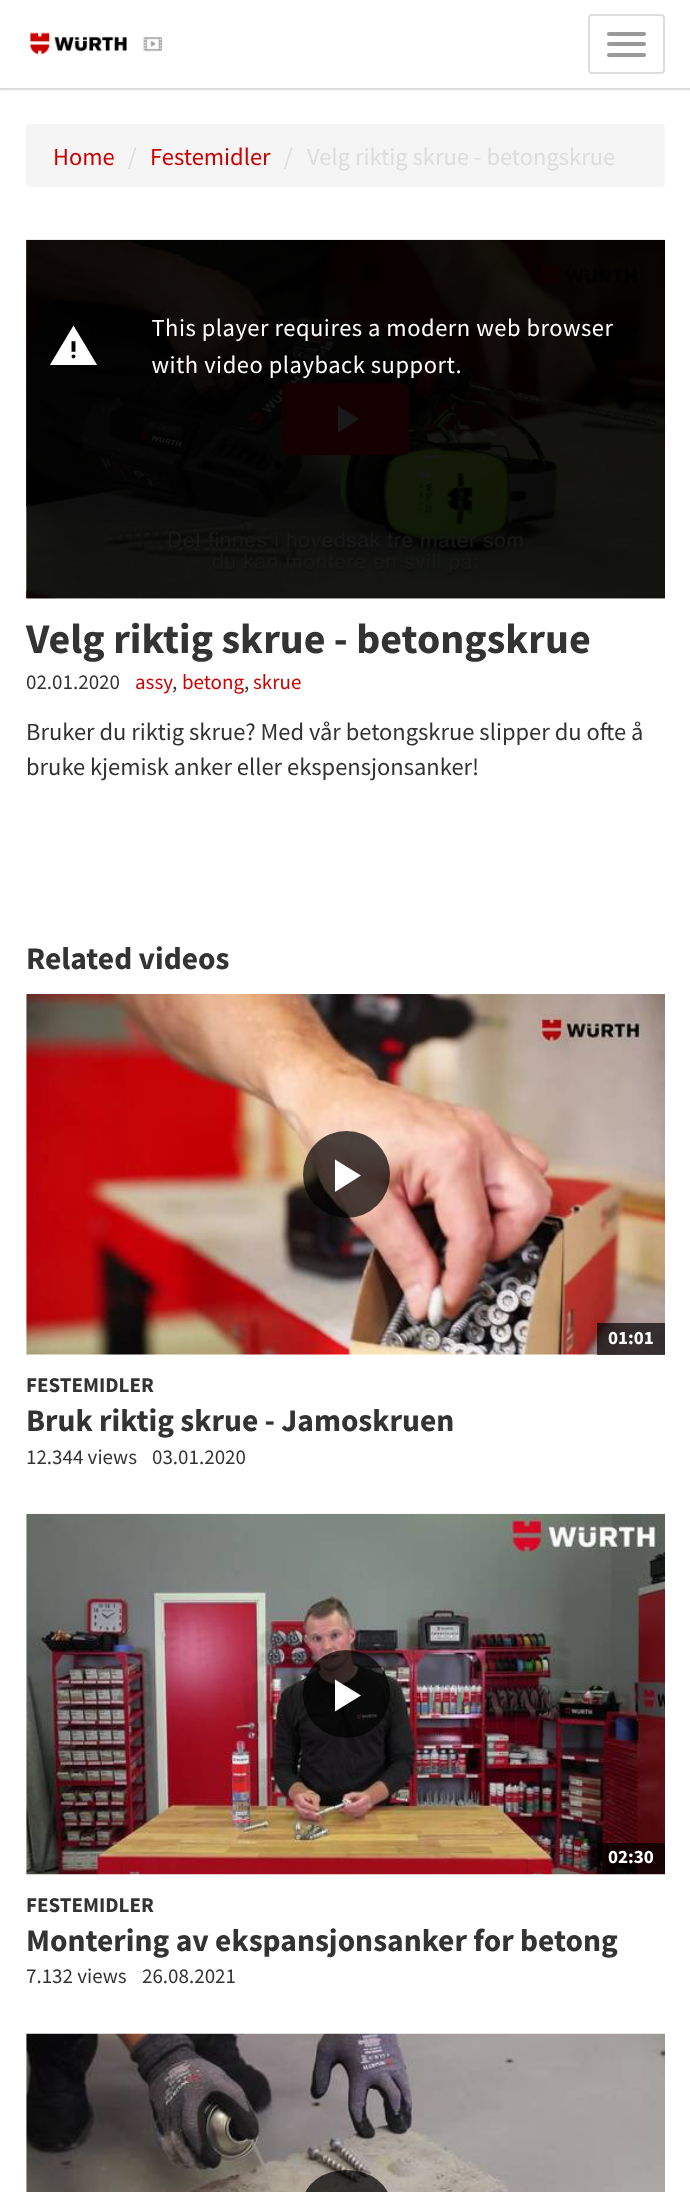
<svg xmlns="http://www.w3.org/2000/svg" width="690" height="2192">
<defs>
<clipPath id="clip1"><rect x="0" y="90" width="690" height="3"/></clipPath>
</defs>
<rect width="100%" height="100%" fill="#fff"/>
<g clip-path="url(#clip1)">
<rect width="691" height="89" fill="#ddd" filter="blur(2px)"/>
</g>
<rect y="88" width="690" height="2" fill="#ddd"/>
<image x="30" y="32" width="132" height="23" href="media/1.png"/>
<rect x="589" y="15" width="75" height="58" rx="3" fill="none" stroke="#ddd" stroke-width="2"/>
<rect x="607" y="32" width="39" height="4" rx="2" fill="#999"/>
<rect x="607" y="42" width="39" height="4" rx="2" fill="#999"/>
<rect x="607" y="53" width="39" height="4" rx="2" fill="#999"/>
<rect x="26" y="124" width="639" height="63" rx="4" fill="#f5f5f5"/>
<text x="53" y="165" style="font-family:Source Sans Pro;font-size:24.5px;fill:#c00">Home</text>
<text x="128" y="165" style="font-family:Source Sans Pro;font-size:24.5px;fill:#ddd">/</text>
<text x="150" y="165" style="font-family:Source Sans Pro;font-size:24.5px;fill:#c00">Festemidler</text>
<text x="284" y="165" style="font-family:Source Sans Pro;font-size:24.5px;fill:#ddd">/</text>
<text x="307" y="165" style="font-family:Source Sans Pro;font-size:24.5px;fill:#ddd">Velg riktig skrue - betongskrue</text>
<image x="26" y="239" width="639" height="360" href="media/2.png"/>
<text x="26" y="653" style="font-family:Source Sans Pro;font-size:42px;font-weight:bold;fill:#333">Velg riktig skrue - betongskrue</text>
<text x="26" y="689" style="font-family:Source Sans Pro;font-size:21px;fill:#333">02.01.2020</text>
<text x="135" y="689" style="font-family:Source Sans Pro;font-size:21px;fill:#c00">assy</text>
<text x="172" y="689" style="font-family:Source Sans Pro;font-size:21px;fill:#333">,</text>
<text x="182" y="689" style="font-family:Source Sans Pro;font-size:21px;fill:#c00">betong</text>
<text x="244" y="689" style="font-family:Source Sans Pro;font-size:21px;fill:#333">,</text>
<text x="253" y="689" style="font-family:Source Sans Pro;font-size:21px;fill:#c00">skrue</text>
<text x="26" y="740" style="font-family:Source Sans Pro;font-size:24.5px;fill:#333">Bruker du riktig skrue? Med vår betongskrue slipper du ofte å</text>
<text x="26" y="775" style="font-family:Source Sans Pro;font-size:24.5px;fill:#333">bruke kjemisk anker eller ekspensjonsanker!</text>
<text x="26" y="969" style="font-family:Source Sans Pro;font-size:31.5px;font-weight:bold;fill:#333">Related videos</text>
<image x="26" y="994" width="639" height="361" href="media/3.png"/>
<circle cx="346.5" cy="1174.5" r="43.5" fill="#000000b3"/>
<path d="M335 1192l26-16.5l-26-16z" fill="#fff"/>
<rect x="597" y="1323" width="68" height="32" fill="#000000b3"/>
<text x="608" y="1344" style="font-family:Source Sans Pro;font-size:19px;font-weight:bold;fill:#fff">01:01</text>
<text x="26" y="1392" style="font-family:Source Sans Pro;font-size:21px;font-weight:bold;fill:#333">FESTEMIDLER</text>
<text x="26" y="1431" style="font-family:Source Sans Pro;font-size:31.5px;font-weight:bold;fill:#333">Bruk riktig skrue - Jamoskruen</text>
<text x="26" y="1464" style="font-family:Source Sans Pro;font-size:21px;fill:#333">12.344 views</text>
<text x="152" y="1464" style="font-family:Source Sans Pro;font-size:21px;fill:#333">03.01.2020</text>
<image x="26" y="1513" width="639" height="362" href="media/4.png"/>
<rect x="303" y="1650" width="87" height="88" rx="43.5" fill="#000000b3"/>
<path d="M335 1711.5l26-16l-26-16z" fill="#fff"/>
<rect x="597" y="1843" width="68" height="31" fill="#000000b3"/>
<text x="608" y="1863" style="font-family:Source Sans Pro;font-size:19px;font-weight:bold;fill:#fff">02:30</text>
<text x="26" y="1912" style="font-family:Source Sans Pro;font-size:21px;font-weight:bold;fill:#333">FESTEMIDLER</text>
<text x="26" y="1951" style="font-family:Source Sans Pro;font-size:31.5px;font-weight:bold;fill:#333">Montering av ekspansjonsanker for betong</text>
<text x="26" y="1983" style="font-family:Source Sans Pro;font-size:21px;fill:#333">7.132 views</text>
<text x="142" y="1983" style="font-family:Source Sans Pro;font-size:21px;fill:#333">26.08.2021</text>
<image x="26" y="2033" width="639" height="159" href="media/5.png"/>
<rect x="303" y="2170" width="87" height="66" rx="43.5" fill="#000000b3"/>
</svg>
